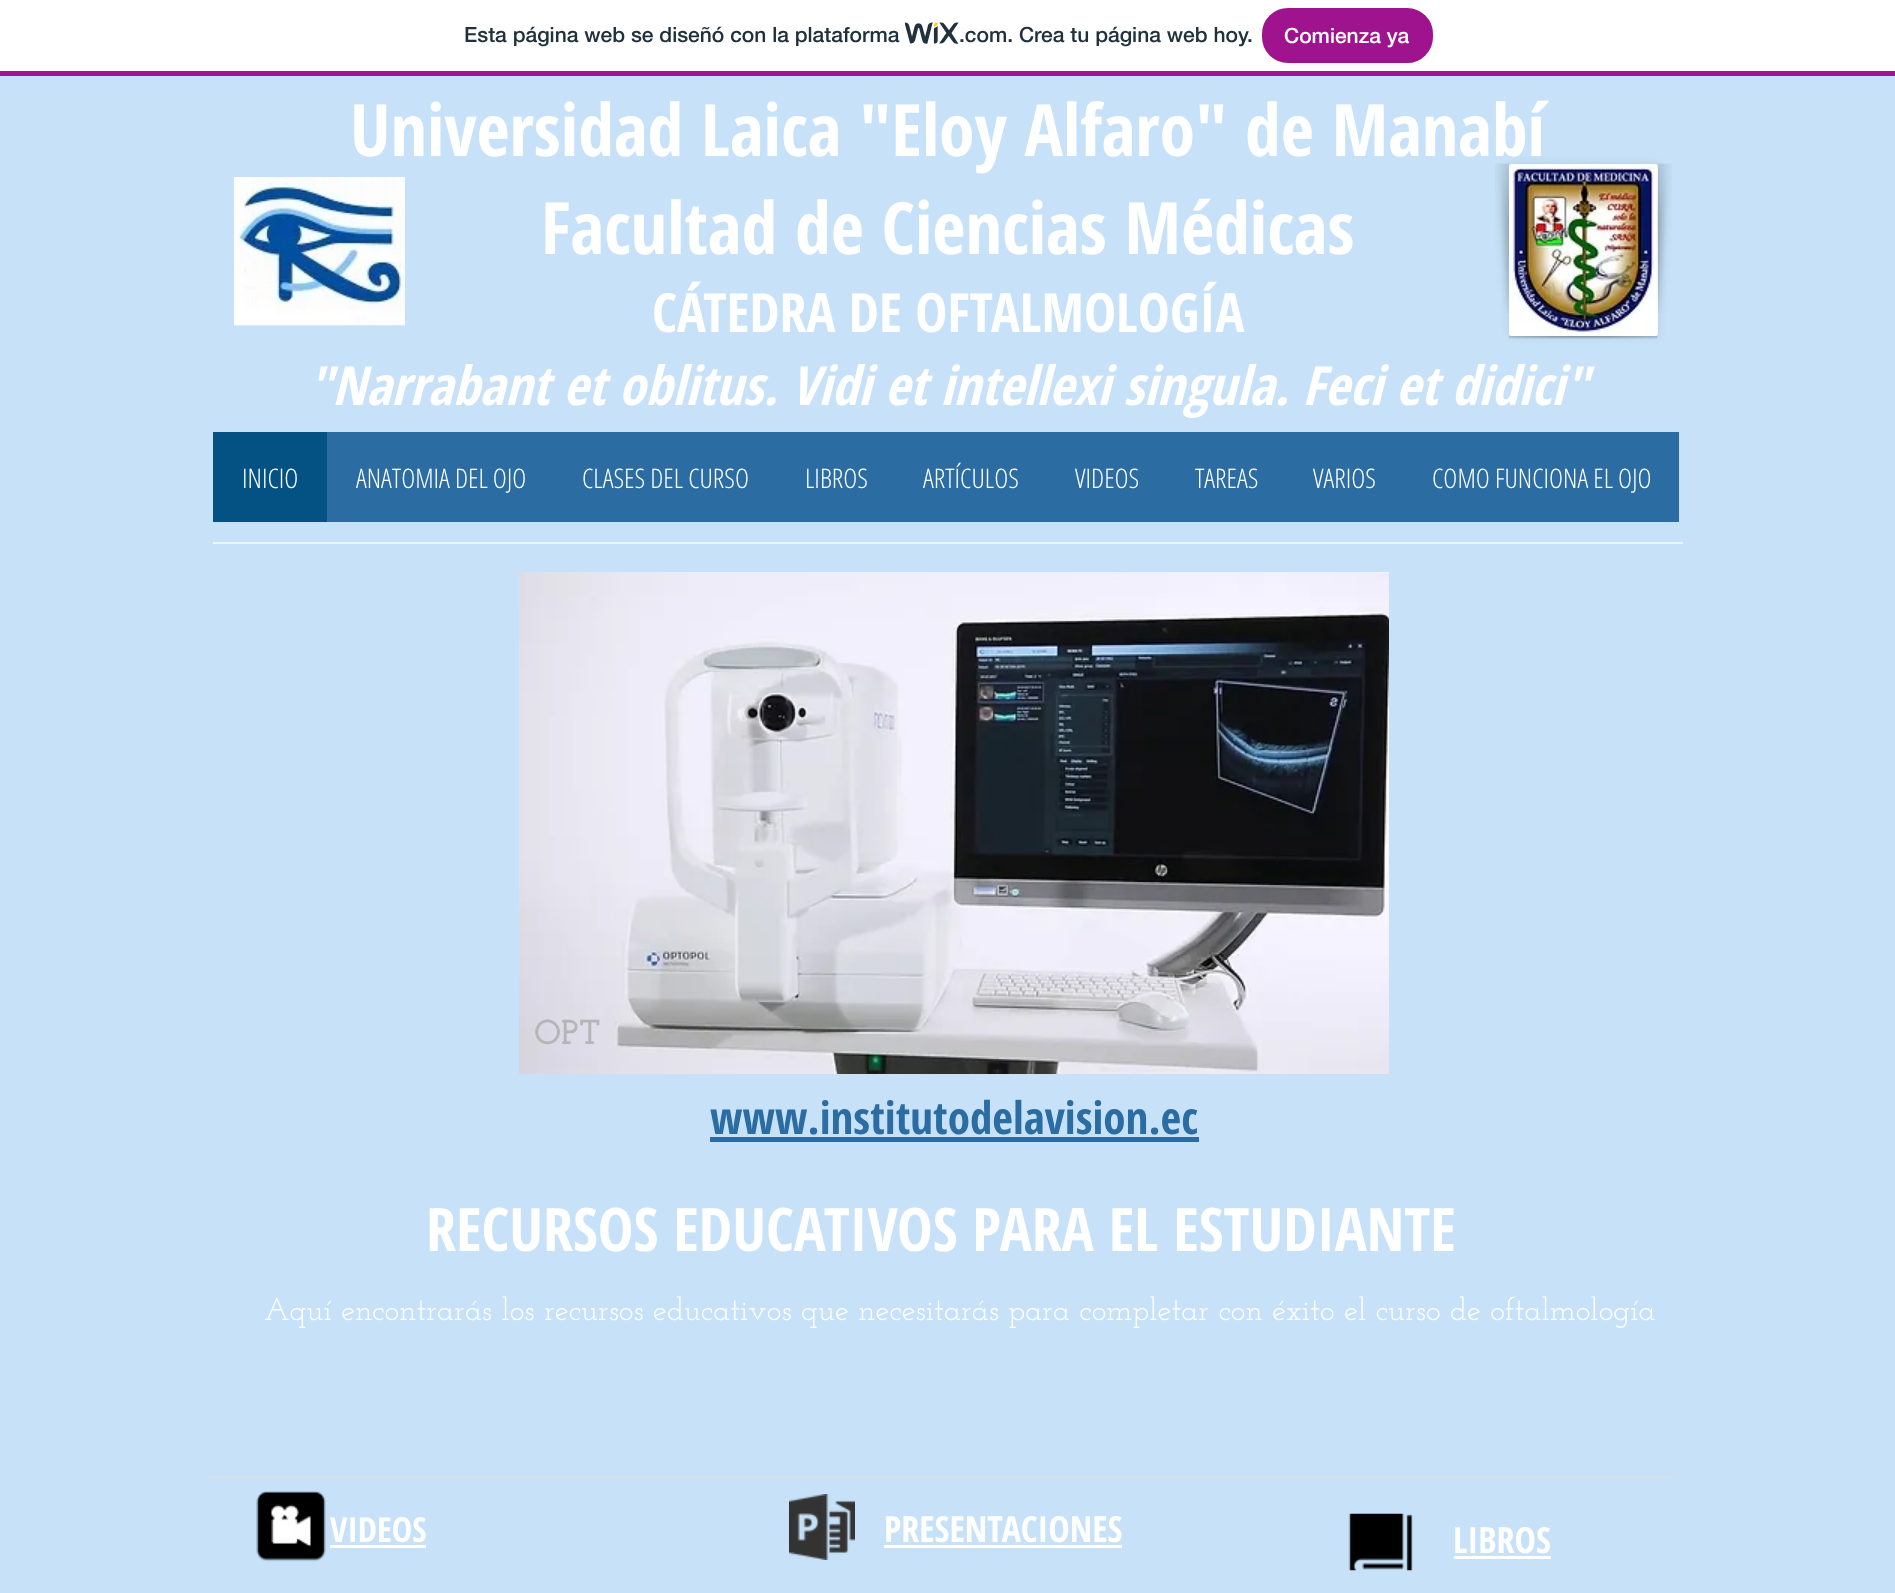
<svg xmlns="http://www.w3.org/2000/svg" width="1895" height="1593">
<rect width="100%" height="100%" fill="#fff"/>
<rect y="71" width="1895" height="5" fill="#a0138e"/>
<text x="464" y="42" style="font-family:'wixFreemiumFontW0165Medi';font-size:21px;font-weight:500;fill:#20303c">Esta página web se diseñó con la plataforma</text>
<image x="905" y="22" width="54" height="22" href="media/1.png"/>
<text x="959" y="42" style="font-family:'wixFreemiumFontW0165Medi';font-size:21px;font-weight:500;fill:#20303c">.com. Crea tu página web hoy.</text>
<rect x="1263" y="9" width="169" height="53" rx="25" fill="#a0138e" stroke="#a0138e" stroke-width="2"/>
<text x="1284" y="43" style="font-family:'wixFreemiumFontW0165Medi';font-size:21px;font-weight:500;fill:#fff">Comienza ya</text>
<rect y="76" width="1895" height="1517" fill="#c7e2f8"/>
<text x="350" y="156" style="font-family:Open Sans Condensed;font-size:72px;font-weight:bold;fill:#fff">Universidad Laica "Eloy Alfaro" de Manabí</text>
<text x="541" y="254" style="font-family:Open Sans Condensed;font-size:72px;font-weight:bold;fill:#fff">Facultad de Ciencias Médicas</text>
<text x="652" y="332" style="font-family:Open Sans Condensed;font-size:54px;font-weight:bold;fill:#fff">CÁTEDRA DE OFTALMOLOGÍA</text>
<text x="308" y="405" style="font-family:Open Sans Condensed;font-size:54px;font-weight:bold;font-style:italic;fill:#fff">"Narrabant et oblitus. Vidi et intellexi singula. Feci et didici"</text>
<image x="234" y="177" width="171" height="149" href="media/2.png"/>
<rect x="1509" y="164" width="149" height="172" rx="3" fill="#0000001a" filter="blur(4px)"/>
<rect x="1510.5" y="165.5" width="146" height="169" rx="1.5" fill="#fff" stroke="#fff" stroke-width="3"/>
<image x="1512" y="166" width="143" height="167" href="media/3.png"/>
<image x="1509" y="336" width="149" height="3" href="media/4.png"/>
<image x="1495" y="163" width="14" height="150" href="media/5.png"/>
<image x="1657" y="163" width="15" height="150" href="media/6.png"/>
<rect x="213" y="432" width="114" height="90" fill="#045184"/>
<text x="242" y="488" style="font-family:Open Sans Condensed;font-size:27px;font-weight:300;fill:#fff">INICIO</text>
<rect x="327" y="432" width="1352" height="90" fill="#2b6ca3"/>
<text x="356" y="488" style="font-family:Open Sans Condensed;font-size:27px;font-weight:300;fill:#fff">ANATOMIA DEL OJO</text>
<text x="582" y="488" style="font-family:Open Sans Condensed;font-size:27px;font-weight:300;fill:#fff">CLASES DEL CURSO</text>
<text x="805" y="488" style="font-family:Open Sans Condensed;font-size:27px;font-weight:300;fill:#fff">LIBROS</text>
<text x="923" y="488" style="font-family:Open Sans Condensed;font-size:27px;font-weight:300;fill:#fff">ARTÍCULOS</text>
<text x="1075" y="488" style="font-family:Open Sans Condensed;font-size:27px;font-weight:300;fill:#fff">VIDEOS</text>
<text x="1195" y="488" style="font-family:Open Sans Condensed;font-size:27px;font-weight:300;fill:#fff">TAREAS</text>
<text x="1313" y="488" style="font-family:Open Sans Condensed;font-size:27px;font-weight:300;fill:#fff">VARIOS</text>
<text x="1432" y="488" style="font-family:Open Sans Condensed;font-size:27px;font-weight:300;fill:#fff">COMO FUNCIONA EL OJO</text>
<rect x="213" y="542" width="1470" height="2" fill="#eef6fd"/>
<image x="519" y="572" width="870" height="502" href="media/7.png"/>
<text x="534" y="1044" style="font-family:Josefin Slab;font-size:34.5px;font-weight:bold;fill:#b5b5b8">OPT</text>
<text x="710" y="1134" style="font-family:Open Sans Condensed;font-size:45px;font-weight:bold;fill:#2b6ca3">www.institutodelavision.ec</text>
<rect x="710" y="1137" width="489" height="5" fill="#2b6ca3"/>
<text x="426" y="1251" style="font-family:Open Sans Condensed;font-size:60px;font-weight:bold;fill:#fff">RECURSOS EDUCATIVOS PARA EL ESTUDIANTE</text>
<text x="264" y="1320" style="font-family:Josefin Slab;font-size:31.5px;fill:#fff">Aquí encontrarás los recursos educativos que necesitarás para completar con éxito el curso de oftalmología</text>
<rect x="206" y="1476" width="1470" height="2" fill="#d4e1ec"/>
<image x="256" y="1491" width="70" height="71" href="media/8.png"/>
<text x="330" y="1542" style="font-family:Open Sans Condensed;font-size:34.5px;font-weight:bold;fill:#fff">VIDEOS</text>
<rect x="330" y="1545" width="96" height="3" fill="#fff"/>
<image x="789" y="1494" width="66" height="66" href="media/9.png"/>
<text x="884" y="1542" style="font-family:Open Sans Condensed;font-size:36px;font-weight:bold;fill:#fff">PRESENTACIONES</text>
<rect x="884" y="1545" width="238" height="3" fill="#fff"/>
<image x="1348" y="1513" width="65" height="58" href="media/10.png"/>
<text x="1453" y="1553" style="font-family:Open Sans Condensed;font-size:36px;font-weight:bold;fill:#fff">LIBROS</text>
<rect x="1454" y="1556" width="97" height="3" fill="#fff"/>
</svg>
